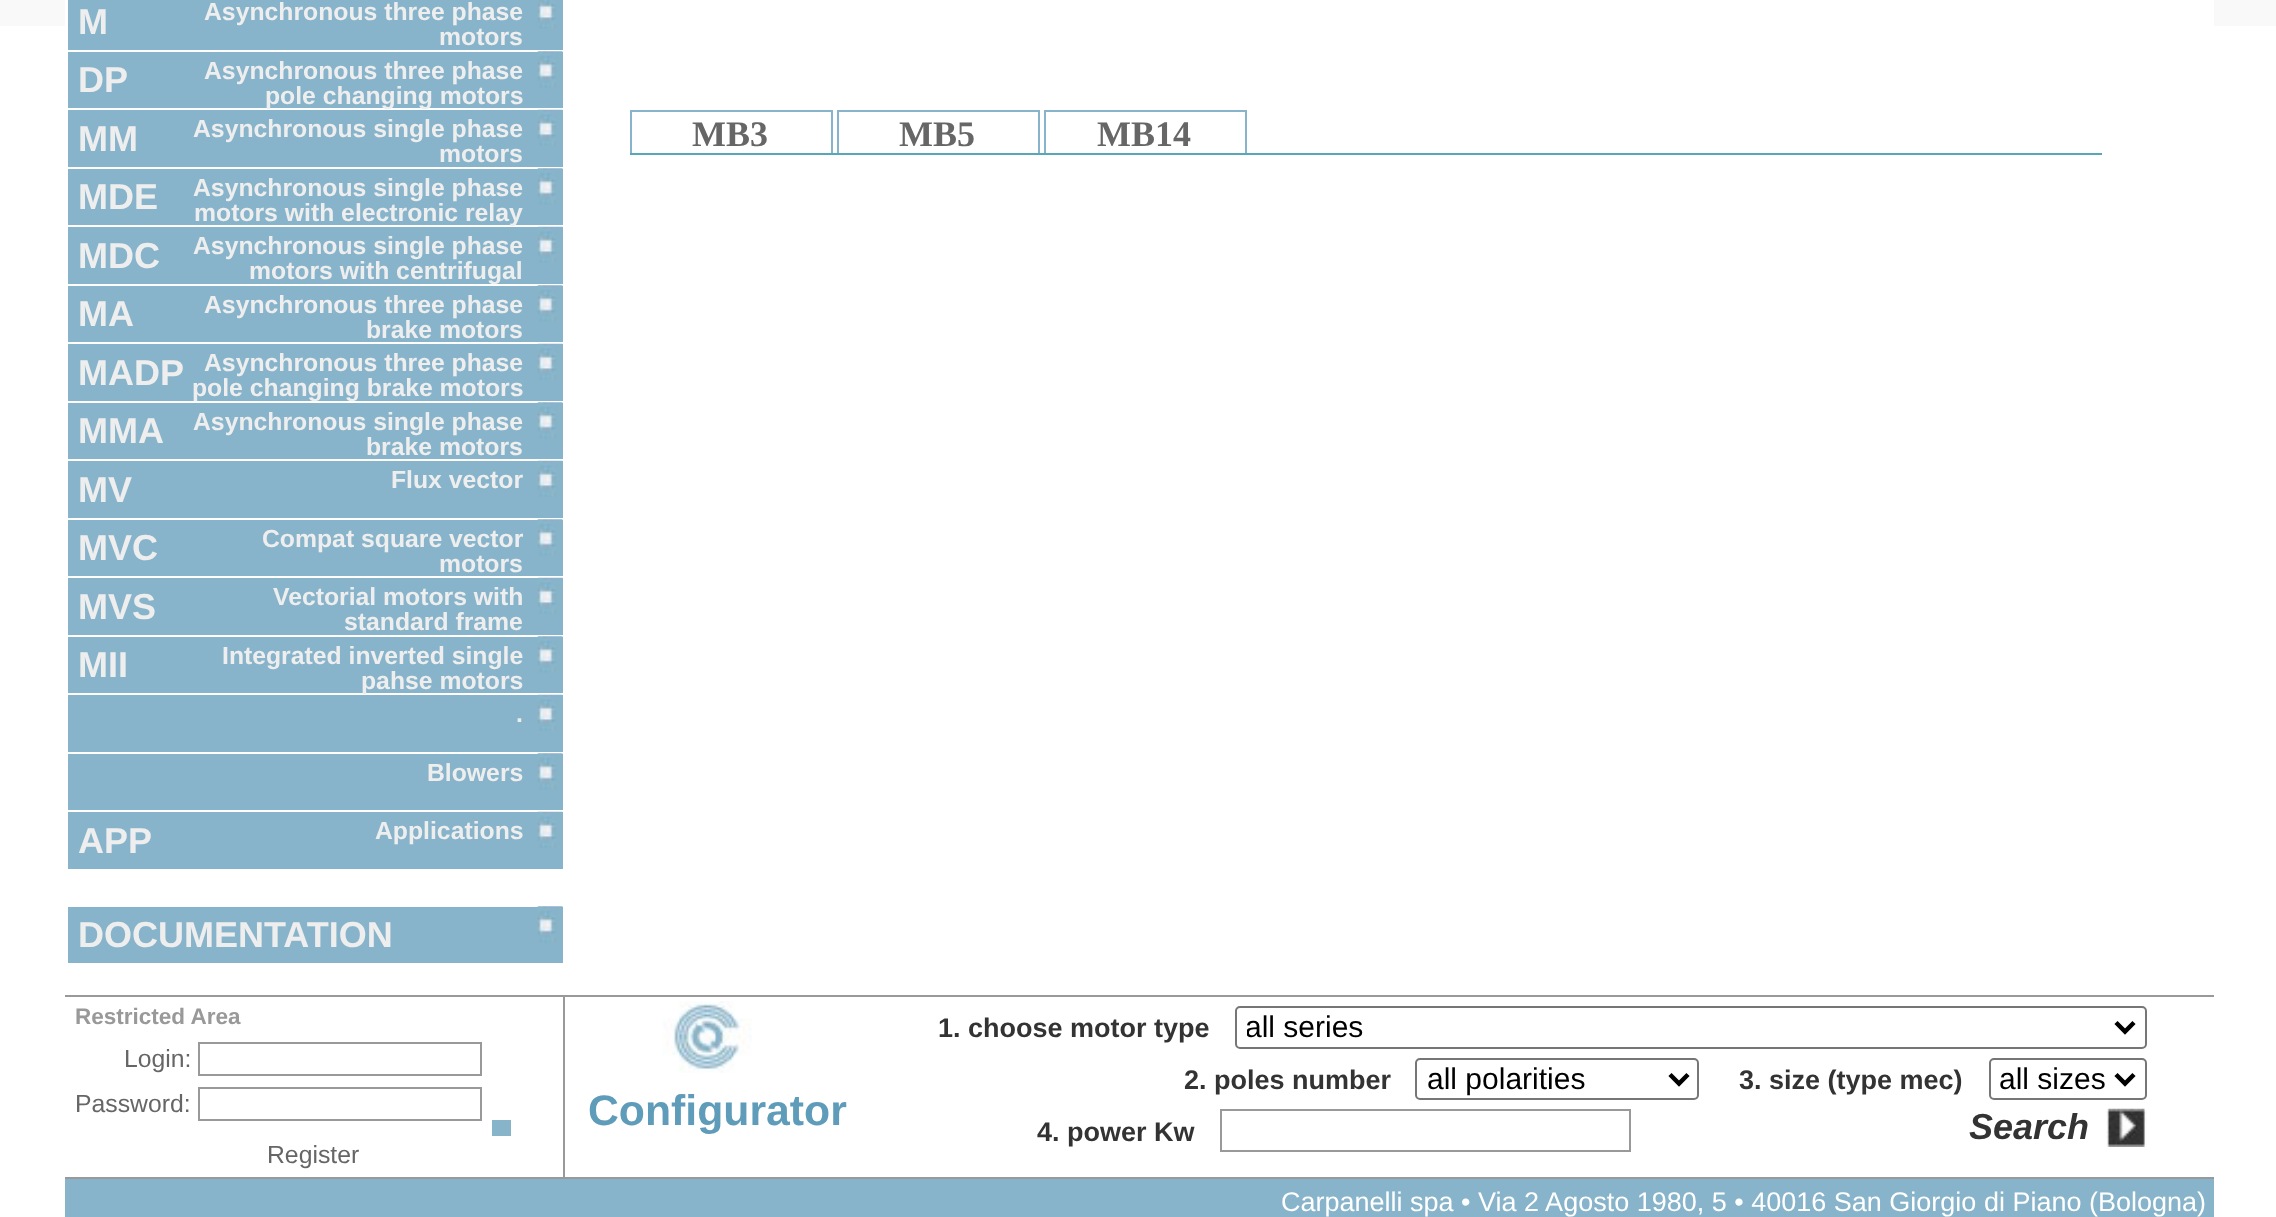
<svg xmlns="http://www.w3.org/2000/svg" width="2276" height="1217">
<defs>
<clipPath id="clip1"><rect x="1247" y="1008" width="861" height="38"/></clipPath>
</defs>
<rect width="100%" height="100%" fill="#fff"/>
<rect width="2276" height="26" fill="#f9f9f9"/>
<rect x="65" width="2149" height="26" fill="#fff"/>
<rect x="68" width="495" height="50" fill="#87b4ca"/>
<image x="537" y="0" width="19" height="29" href="media/1.png"/>
<text x="78" y="34" style="font-family:Liberation Sans;font-size:36px;font-weight:bold;fill:#eee">M</text>
<text x="204" y="20" style="font-family:Liberation Sans;font-size:24.75px;font-weight:bold;fill:#eee">Asynchronous three phase</text>
<text x="439" y="45" style="font-family:Liberation Sans;font-size:24.75px;font-weight:bold;fill:#eee">motors</text>
<rect x="68" y="52" width="495" height="56" fill="#87b4ca"/>
<image x="537" y="51" width="26" height="37" href="media/2.png"/>
<text x="78" y="92" style="font-family:Liberation Sans;font-size:36px;font-weight:bold;fill:#eee">DP</text>
<text x="204" y="79" style="font-family:Liberation Sans;font-size:24.75px;font-weight:bold;fill:#eee">Asynchronous three phase</text>
<text x="265" y="104" style="font-family:Liberation Sans;font-size:24.75px;font-weight:bold;fill:#eee">pole changing motors</text>
<rect x="68" y="110" width="495" height="57" fill="#87b4ca"/>
<image x="537" y="109" width="26" height="37" href="media/3.png"/>
<text x="78" y="151" style="font-family:Liberation Sans;font-size:36px;font-weight:bold;fill:#eee">MM</text>
<text x="193" y="137" style="font-family:Liberation Sans;font-size:24.75px;font-weight:bold;fill:#eee">Asynchronous single phase</text>
<text x="439" y="162" style="font-family:Liberation Sans;font-size:24.75px;font-weight:bold;fill:#eee">motors</text>
<rect x="68" y="169" width="495" height="56" fill="#87b4ca"/>
<image x="537" y="168" width="26" height="37" href="media/4.png"/>
<text x="78" y="209" style="font-family:Liberation Sans;font-size:36px;font-weight:bold;fill:#eee">MDE</text>
<text x="193" y="196" style="font-family:Liberation Sans;font-size:24.75px;font-weight:bold;fill:#eee">Asynchronous single phase</text>
<text x="194" y="221" style="font-family:Liberation Sans;font-size:24.75px;font-weight:bold;fill:#eee">motors with electronic relay</text>
<rect x="68" y="227" width="495" height="57" fill="#87b4ca"/>
<image x="537" y="226" width="26" height="37" href="media/3.png"/>
<text x="78" y="268" style="font-family:Liberation Sans;font-size:36px;font-weight:bold;fill:#eee">MDC</text>
<text x="193" y="254" style="font-family:Liberation Sans;font-size:24.75px;font-weight:bold;fill:#eee">Asynchronous single phase</text>
<text x="249" y="279" style="font-family:Liberation Sans;font-size:24.75px;font-weight:bold;fill:#eee">motors with centrifugal</text>
<rect x="68" y="286" width="495" height="56" fill="#87b4ca"/>
<image x="537" y="285" width="26" height="37" href="media/2.png"/>
<text x="78" y="326" style="font-family:Liberation Sans;font-size:36px;font-weight:bold;fill:#eee">MA</text>
<text x="204" y="313" style="font-family:Liberation Sans;font-size:24.75px;font-weight:bold;fill:#eee">Asynchronous three phase</text>
<text x="366" y="338" style="font-family:Liberation Sans;font-size:24.75px;font-weight:bold;fill:#eee">brake motors</text>
<rect x="68" y="344" width="495" height="57" fill="#87b4ca"/>
<image x="537" y="343" width="26" height="37" href="media/3.png"/>
<text x="78" y="385" style="font-family:Liberation Sans;font-size:36px;font-weight:bold;fill:#eee">MADP</text>
<text x="204" y="371" style="font-family:Liberation Sans;font-size:24.75px;font-weight:bold;fill:#eee">Asynchronous three phase</text>
<text x="192" y="396" style="font-family:Liberation Sans;font-size:24.75px;font-weight:bold;fill:#eee">pole changing brake motors</text>
<rect x="68" y="403" width="495" height="56" fill="#87b4ca"/>
<image x="537" y="402" width="26" height="37" href="media/2.png"/>
<text x="78" y="443" style="font-family:Liberation Sans;font-size:36px;font-weight:bold;fill:#eee">MMA</text>
<text x="193" y="430" style="font-family:Liberation Sans;font-size:24.75px;font-weight:bold;fill:#eee">Asynchronous single phase</text>
<text x="366" y="455" style="font-family:Liberation Sans;font-size:24.75px;font-weight:bold;fill:#eee">brake motors</text>
<rect x="68" y="461" width="495" height="57" fill="#87b4ca"/>
<image x="537" y="460" width="26" height="37" href="media/3.png"/>
<text x="78" y="502" style="font-family:Liberation Sans;font-size:36px;font-weight:bold;fill:#eee">MV</text>
<text x="391" y="488" style="font-family:Liberation Sans;font-size:24.75px;font-weight:bold;fill:#eee">Flux vector</text>
<rect x="68" y="520" width="495" height="56" fill="#87b4ca"/>
<image x="537" y="519" width="26" height="37" href="media/2.png"/>
<text x="78" y="560" style="font-family:Liberation Sans;font-size:36px;font-weight:bold;fill:#eee">MVC</text>
<text x="262" y="547" style="font-family:Liberation Sans;font-size:24.75px;font-weight:bold;fill:#eee">Compat square vector</text>
<text x="439" y="572" style="font-family:Liberation Sans;font-size:24.75px;font-weight:bold;fill:#eee">motors</text>
<rect x="68" y="578" width="495" height="57" fill="#87b4ca"/>
<image x="537" y="577" width="26" height="37" href="media/3.png"/>
<text x="78" y="619" style="font-family:Liberation Sans;font-size:36px;font-weight:bold;fill:#eee">MVS</text>
<text x="273" y="605" style="font-family:Liberation Sans;font-size:24.75px;font-weight:bold;fill:#eee">Vectorial motors with</text>
<text x="344" y="630" style="font-family:Liberation Sans;font-size:24.75px;font-weight:bold;fill:#eee">standard frame</text>
<rect x="68" y="637" width="495" height="56" fill="#87b4ca"/>
<image x="537" y="636" width="26" height="37" href="media/2.png"/>
<text x="78" y="677" style="font-family:Liberation Sans;font-size:36px;font-weight:bold;fill:#eee">MII</text>
<text x="222" y="664" style="font-family:Liberation Sans;font-size:24.75px;font-weight:bold;fill:#eee">Integrated inverted single</text>
<text x="361" y="689" style="font-family:Liberation Sans;font-size:24.75px;font-weight:bold;fill:#eee">pahse motors</text>
<rect x="68" y="695" width="495" height="57" fill="#87b4ca"/>
<image x="537" y="694" width="26" height="37" href="media/3.png"/>
<text x="516" y="722" style="font-family:Liberation Sans;font-size:24.75px;font-weight:bold;fill:#eee">.</text>
<rect x="68" y="754" width="495" height="56" fill="#87b4ca"/>
<image x="537" y="753" width="26" height="37" href="media/2.png"/>
<text x="427" y="781" style="font-family:Liberation Sans;font-size:24.75px;font-weight:bold;fill:#eee">Blowers</text>
<rect x="68" y="812" width="495" height="57" fill="#87b4ca"/>
<image x="537" y="811" width="26" height="37" href="media/3.png"/>
<text x="78" y="853" style="font-family:Liberation Sans;font-size:36px;font-weight:bold;fill:#eee">APP</text>
<text x="375" y="839" style="font-family:Liberation Sans;font-size:24.75px;font-weight:bold;fill:#eee">Applications</text>
<rect x="68" y="907" width="495" height="56" fill="#87b4ca"/>
<image x="537" y="906" width="26" height="37" href="media/2.png"/>
<text x="78" y="947" style="font-family:Liberation Sans;font-size:36px;font-weight:bold;fill:#eee">DOCUMENTATION</text>
<rect x="631" y="111" width="201" height="43" fill="none" stroke="#87b4ca" stroke-width="2"/>
<text x="692" y="146" style="font-family:Liberation Serif;font-size:36px;font-weight:bold;fill:#666">MB3</text>
<rect x="838" y="111" width="201" height="43" fill="none" stroke="#87b4ca" stroke-width="2"/>
<text x="899" y="146" style="font-family:Liberation Serif;font-size:36px;font-weight:bold;fill:#666">MB5</text>
<rect x="1045" y="111" width="201" height="43" fill="none" stroke="#87b4ca" stroke-width="2"/>
<text x="1097" y="146" style="font-family:Liberation Serif;font-size:36px;font-weight:bold;fill:#666">MB14</text>
<rect x="630" y="153" width="1472" height="2" fill="#57a7b9"/>
<text x="75" y="1024" style="font-family:Liberation Sans;font-size:22.5px;font-weight:bold;fill:#999">Restricted Area</text>
<text x="124" y="1067" style="font-family:Liberation Sans;font-size:24.75px;fill:#666">Login:</text>
<rect x="199" y="1043" width="282" height="32" fill="none" stroke="#999" stroke-width="2"/>
<text x="75" y="1112" style="font-family:Liberation Sans;font-size:24.75px;fill:#666">Password:</text>
<rect x="199" y="1088" width="282" height="32" fill="none" stroke="#999" stroke-width="2"/>
<rect x="492" y="1120" width="19" height="16" fill="#87b4c9"/>
<text x="267" y="1163" style="font-family:Liberation Sans;font-size:24.75px;fill:#666">Register</text>
<rect x="65" y="995" width="2149" height="2" fill="#999"/>
<rect x="65" y="1177" width="2149" height="2" fill="#999"/>
<rect x="563" y="995" width="2" height="184" fill="#999"/>
<image x="662" y="1001" width="90" height="72" href="media/5.png"/>
<text x="588" y="1125" style="font-family:Liberation Sans;font-size:42.75px;font-weight:bold;fill:#5f9cb9">Configurator</text>
<text x="938" y="1037" style="font-family:Liberation Sans;font-size:27px;font-weight:bold;fill:#333">1. choose motor type</text>
<rect x="1236" y="1007" width="910" height="41" rx="4" fill="none" stroke="#767676" stroke-width="2"/>
<path d="M2116 1022.5l9 9l9-9" fill="none" stroke="#000" stroke-width="4.5"/>
<g clip-path="url(#clip1)">
<text x="1245" y="1037" style="font-family:Liberation Sans;font-size:30px;fill:#000">all series</text>
</g>
<text x="1184" y="1089" style="font-family:Liberation Sans;font-size:27px;font-weight:bold;fill:#333">2. poles number</text>
<rect x="1416" y="1059" width="282" height="40" rx="4" fill="none" stroke="#767676" stroke-width="2"/>
<path d="M1670 1074.5l9 9l9-9" fill="none" stroke="#000" stroke-width="4.5"/>
<text x="1427" y="1089" style="font-family:Liberation Sans;font-size:30px;fill:#000">all polarities</text>
<text x="1739" y="1089" style="font-family:Liberation Sans;font-size:27px;font-weight:bold;fill:#333">3. size (type mec)</text>
<rect x="1990" y="1059" width="156" height="40" rx="4" fill="none" stroke="#767676" stroke-width="2"/>
<path d="M2116 1074.5l9 9l9-9" fill="none" stroke="#000" stroke-width="4.5"/>
<text x="1999" y="1089" style="font-family:Liberation Sans;font-size:30px;fill:#000">all sizes</text>
<text x="1037" y="1141" style="font-family:Liberation Sans;font-size:27px;font-weight:bold;fill:#333">4. power Kw</text>
<rect x="1221" y="1110" width="409" height="41" fill="none" stroke="#999" stroke-width="2"/>
<image x="2106" y="1108" width="41" height="39" href="media/6.png"/>
<text x="1969" y="1139" style="font-family:Liberation Sans;font-size:36px;font-weight:bold;font-style:italic;fill:#333">Search</text>
<rect x="65" y="1179" width="2149" height="38" fill="#87b4ca"/>
<text x="1281" y="1211" style="font-family:Liberation Sans;font-size:27px;fill:#fff">Carpanelli spa • Via 2 Agosto 1980, 5 • 40016 San Giorgio di Piano (Bologna)</text>
</svg>
